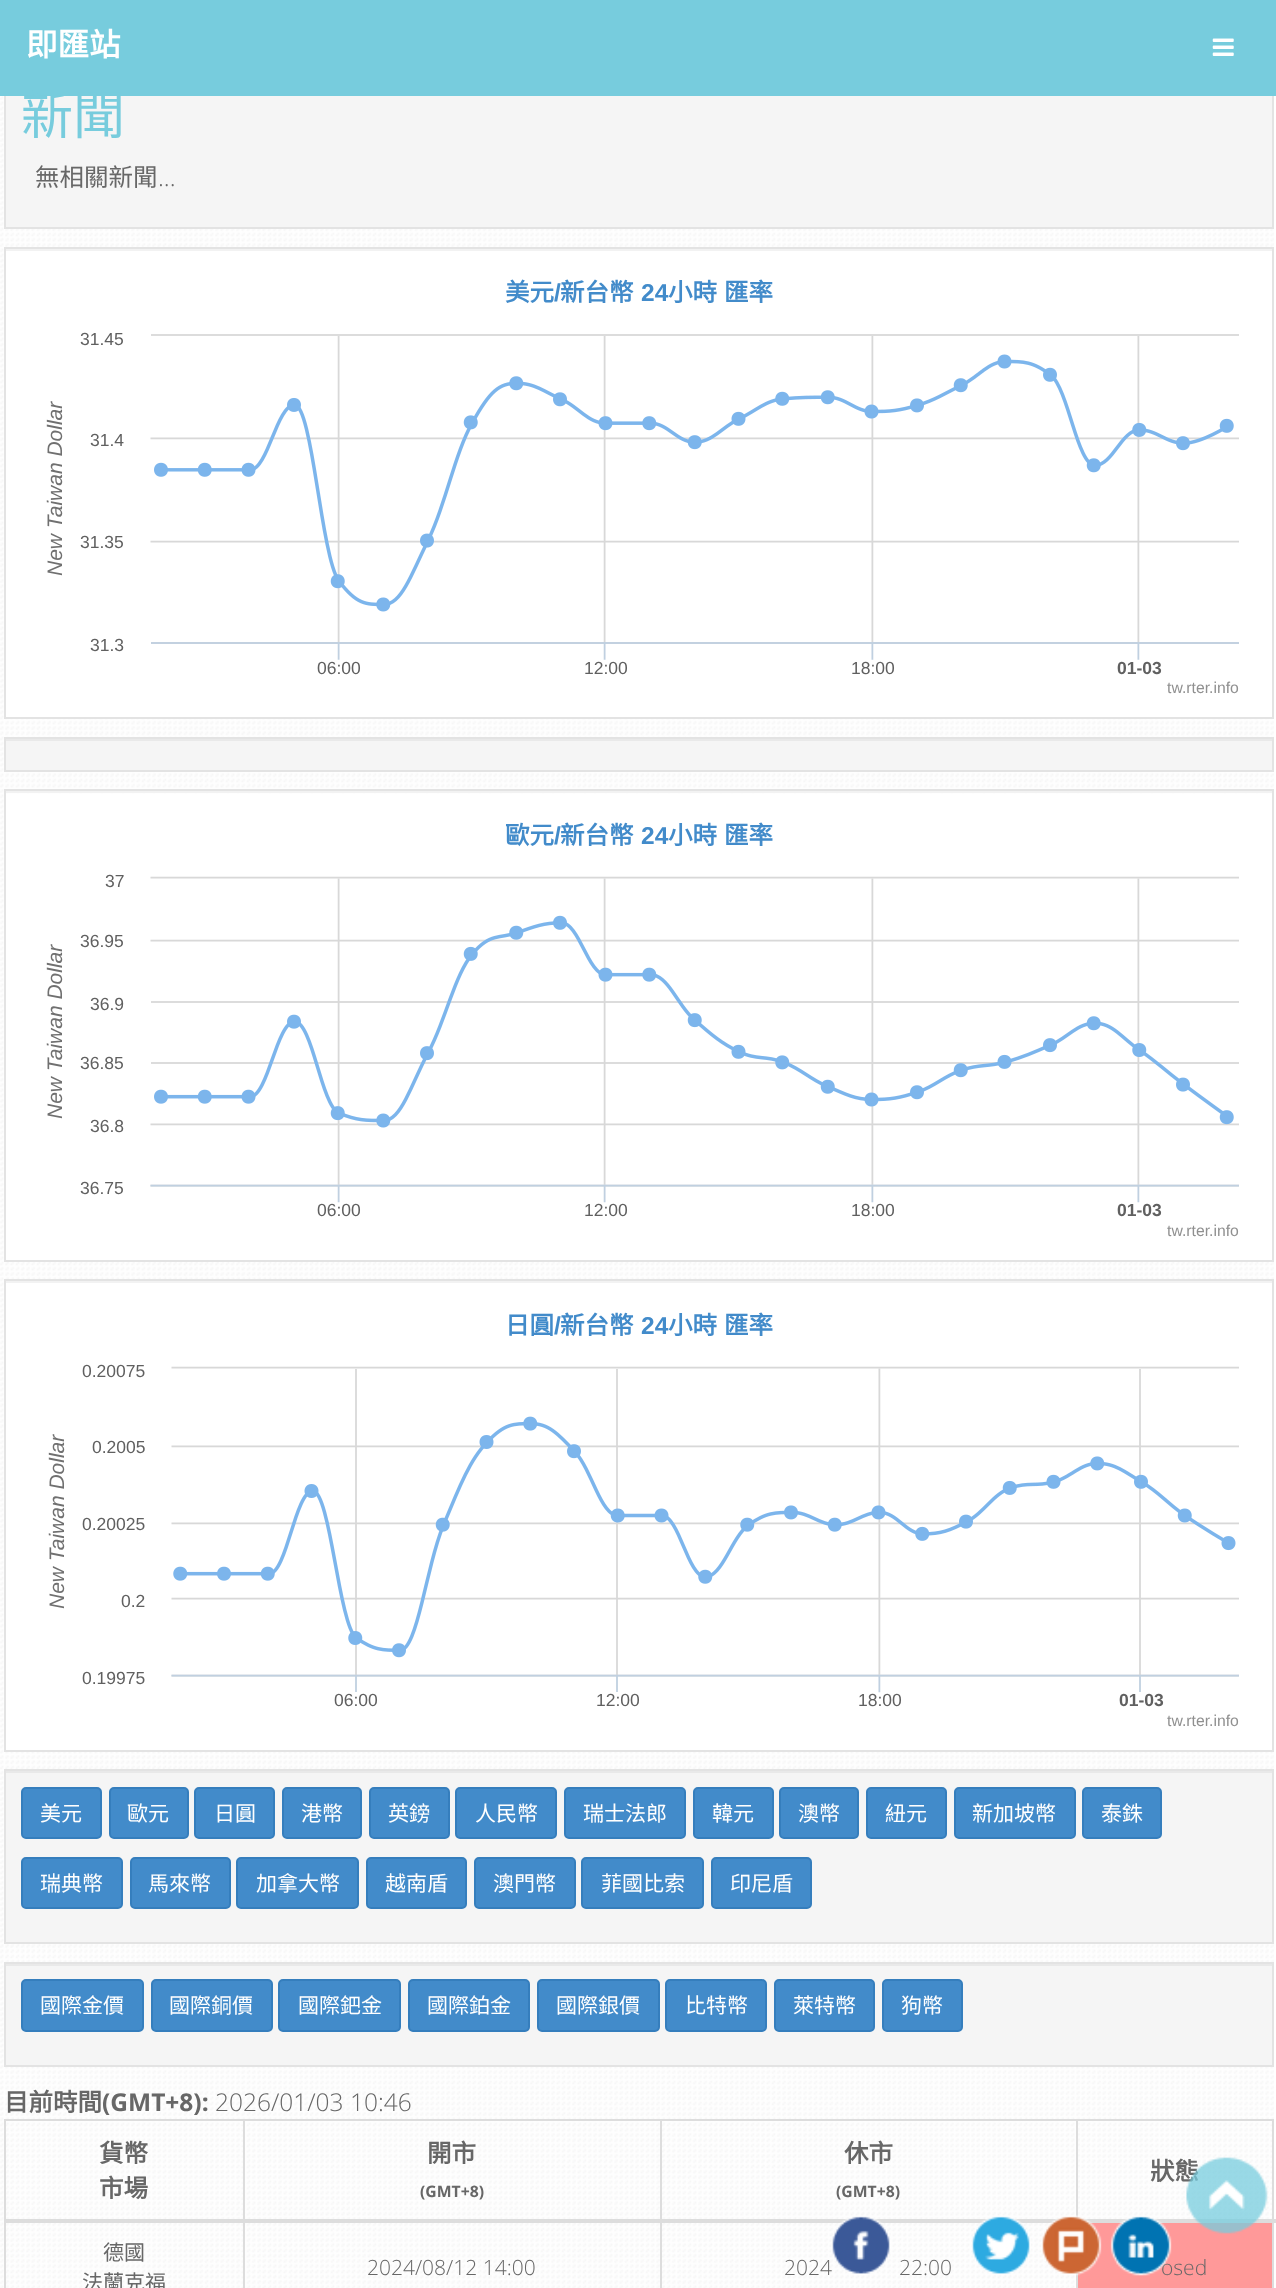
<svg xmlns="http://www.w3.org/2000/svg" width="1276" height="2288">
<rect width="100%" height="100%" fill="#fff"/>
<image x="0" y="96" width="1274" height="2192" href="media/1.png"/>
<rect x="6" y="96" width="1266" height="131" fill="#f5f5f5"/>
<rect x="5" y="33" width="1268" height="195" fill="none" stroke="#e3e3e3" stroke-width="2"/>
<rect width="1276" height="96" fill="#7cd"/>
<text x="26" y="56" style="font-family:Noto Sans CJK TC;font-size:31.5px;font-weight:bold;fill:#fff">即匯站</text>
<image x="1212" y="38" width="22" height="18" href="media/2.png"/>
<text x="21" y="134" style="font-family:Noto Sans CJK TC;font-size:52px;fill:#7cd">新聞</text>
<text x="35" y="186" style="font-family:Noto Sans CJK TC;font-size:24.5px;fill:#676767">無相關新聞</text>
<text x="158" y="186" style="font-family:Open Sans;font-size:24.5px;font-weight:300;fill:#676767">...</text>
<rect x="6" y="251" width="1266" height="466" fill="#ffffffe6"/>
<rect x="5" y="249" width="1267" height="2" fill="#f2f2f2"/>
<rect x="5" y="248" width="1268" height="470" fill="none" stroke="#e3e3e3" stroke-width="2"/>
<text x="505" y="301" style="font-family:Noto Sans CJK TC;font-size:24.5px;font-weight:bold;fill:#428bca">美元</text>
<text x="554" y="301" style="font-family:Liberation Sans;font-size:24.5px;font-weight:bold;fill:#428bca">/</text>
<text x="560" y="301" style="font-family:Noto Sans CJK TC;font-size:24.5px;font-weight:bold;fill:#428bca">新台幣</text>
<text x="641" y="301" style="font-family:Liberation Sans;font-size:24.5px;font-weight:bold;fill:#428bca">24</text>
<text x="668" y="301" style="font-family:Noto Sans CJK TC;font-size:24.5px;font-weight:bold;fill:#428bca">小時</text>
<text x="724" y="301" style="font-family:Noto Sans CJK TC;font-size:24.5px;font-weight:bold;fill:#428bca">匯率</text>
<image x="47" y="334" width="1192" height="326" href="media/3.png"/>
<text x="80" y="345" style="font-family:Liberation Sans;font-size:17.5px;fill:#606060">31.45</text>
<text x="62" y="576" transform="rotate(-90 62 576)" style="font-family:Liberation Sans;font-size:21px;font-style:italic;fill:#707070">New Taiwan Dollar</text>
<text x="90" y="446" style="font-family:Liberation Sans;font-size:17.5px;fill:#606060">31.4</text>
<text x="80" y="548" style="font-family:Liberation Sans;font-size:17.5px;fill:#606060">31.35</text>
<text x="90" y="651" style="font-family:Liberation Sans;font-size:17.5px;fill:#606060">31.3</text>
<text x="317" y="674" style="font-family:Liberation Sans;font-size:17.5px;fill:#606060">06:00</text>
<text x="584" y="674" style="font-family:Liberation Sans;font-size:17.5px;fill:#606060">12:00</text>
<text x="851" y="674" style="font-family:Liberation Sans;font-size:17.5px;fill:#606060">18:00</text>
<text x="1117" y="674" style="font-family:Liberation Sans;font-size:17.5px;font-weight:bold;fill:#606060">01-03</text>
<text x="1167" y="693" style="font-family:Liberation Sans;font-size:15.75px;fill:#909090">tw.rter.info</text>
<rect x="6" y="741" width="1266" height="29" fill="#f5f5f5"/>
<rect x="5" y="739" width="1267" height="2" fill="#e9e9e9"/>
<rect x="5" y="738" width="1268" height="33" fill="none" stroke="#e3e3e3" stroke-width="2"/>
<rect x="6" y="794" width="1266" height="466" fill="#ffffffe6"/>
<rect x="5" y="791" width="1267" height="2" fill="#f2f2f2"/>
<rect x="5" y="790" width="1268" height="471" fill="none" stroke="#e3e3e3" stroke-width="2"/>
<text x="505" y="844" style="font-family:Noto Sans CJK TC;font-size:24.5px;font-weight:bold;fill:#428bca">歐元</text>
<text x="554" y="844" style="font-family:Liberation Sans;font-size:24.5px;font-weight:bold;fill:#428bca">/</text>
<text x="560" y="844" style="font-family:Noto Sans CJK TC;font-size:24.5px;font-weight:bold;fill:#428bca">新台幣</text>
<text x="641" y="844" style="font-family:Liberation Sans;font-size:24.5px;font-weight:bold;fill:#428bca">24</text>
<text x="668" y="844" style="font-family:Noto Sans CJK TC;font-size:24.5px;font-weight:bold;fill:#428bca">小時</text>
<text x="724" y="844" style="font-family:Noto Sans CJK TC;font-size:24.5px;font-weight:bold;fill:#428bca">匯率</text>
<image x="47" y="876" width="1192" height="327" href="media/4.png"/>
<text x="105" y="887" style="font-family:Liberation Sans;font-size:17.5px;fill:#606060">37</text>
<text x="80" y="947" style="font-family:Liberation Sans;font-size:17.5px;fill:#606060">36.95</text>
<text x="62" y="1119" transform="rotate(-90 62 1119)" style="font-family:Liberation Sans;font-size:21px;font-style:italic;fill:#707070">New Taiwan Dollar</text>
<text x="90" y="1010" style="font-family:Liberation Sans;font-size:17.5px;fill:#606060">36.9</text>
<text x="80" y="1069" style="font-family:Liberation Sans;font-size:17.5px;fill:#606060">36.85</text>
<text x="90" y="1132" style="font-family:Liberation Sans;font-size:17.5px;fill:#606060">36.8</text>
<text x="80" y="1194" style="font-family:Liberation Sans;font-size:17.5px;fill:#606060">36.75</text>
<text x="317" y="1216" style="font-family:Liberation Sans;font-size:17.5px;fill:#606060">06:00</text>
<text x="584" y="1216" style="font-family:Liberation Sans;font-size:17.5px;fill:#606060">12:00</text>
<text x="851" y="1216" style="font-family:Liberation Sans;font-size:17.5px;fill:#606060">18:00</text>
<text x="1117" y="1216" style="font-family:Liberation Sans;font-size:17.5px;font-weight:bold;fill:#606060">01-03</text>
<text x="1167" y="1236" style="font-family:Liberation Sans;font-size:15.75px;fill:#909090">tw.rter.info</text>
<rect x="6" y="1283" width="1266" height="467" fill="#ffffffe6"/>
<rect x="5" y="1281" width="1267" height="2" fill="#f2f2f2"/>
<rect x="5" y="1280" width="1268" height="471" fill="none" stroke="#e3e3e3" stroke-width="2"/>
<text x="505" y="1334" style="font-family:Noto Sans CJK TC;font-size:24.5px;font-weight:bold;fill:#428bca">日圓</text>
<text x="554" y="1334" style="font-family:Liberation Sans;font-size:24.5px;font-weight:bold;fill:#428bca">/</text>
<text x="560" y="1334" style="font-family:Noto Sans CJK TC;font-size:24.5px;font-weight:bold;fill:#428bca">新台幣</text>
<text x="641" y="1334" style="font-family:Liberation Sans;font-size:24.5px;font-weight:bold;fill:#428bca">24</text>
<text x="668" y="1334" style="font-family:Noto Sans CJK TC;font-size:24.5px;font-weight:bold;fill:#428bca">小時</text>
<text x="724" y="1334" style="font-family:Noto Sans CJK TC;font-size:24.5px;font-weight:bold;fill:#428bca">匯率</text>
<image x="49" y="1366" width="1190" height="327" href="media/5.png"/>
<text x="82" y="1377" style="font-family:Liberation Sans;font-size:17.5px;fill:#606060">0.20075</text>
<text x="64" y="1609" transform="rotate(-90 64 1609)" style="font-family:Liberation Sans;font-size:21px;font-style:italic;fill:#707070">New Taiwan Dollar</text>
<text x="92" y="1453" style="font-family:Liberation Sans;font-size:17.5px;fill:#606060">0.2005</text>
<text x="82" y="1530" style="font-family:Liberation Sans;font-size:17.5px;fill:#606060">0.20025</text>
<text x="121" y="1607" style="font-family:Liberation Sans;font-size:17.5px;fill:#606060">0.2</text>
<text x="82" y="1684" style="font-family:Liberation Sans;font-size:17.5px;fill:#606060">0.19975</text>
<text x="334" y="1706" style="font-family:Liberation Sans;font-size:17.5px;fill:#606060">06:00</text>
<text x="596" y="1706" style="font-family:Liberation Sans;font-size:17.5px;fill:#606060">12:00</text>
<text x="858" y="1706" style="font-family:Liberation Sans;font-size:17.5px;fill:#606060">18:00</text>
<text x="1119" y="1706" style="font-family:Liberation Sans;font-size:17.5px;font-weight:bold;fill:#606060">01-03</text>
<text x="1167" y="1726" style="font-family:Liberation Sans;font-size:15.75px;fill:#909090">tw.rter.info</text>
<rect x="6" y="1773" width="1266" height="169" fill="#f5f5f5"/>
<rect x="5" y="1771" width="1267" height="2" fill="#e9e9e9"/>
<rect x="5" y="1770" width="1268" height="173" fill="none" stroke="#e3e3e3" stroke-width="2"/>
<rect x="22" y="1788" width="79" height="50" rx="4" fill="#428bca" stroke="#357ebd" stroke-width="2"/>
<text x="40" y="1821" style="font-family:Noto Sans CJK TC;font-size:21px;fill:#fff">美元</text>
<rect x="110" y="1788" width="78" height="50" rx="4" fill="#428bca" stroke="#357ebd" stroke-width="2"/>
<text x="127" y="1821" style="font-family:Noto Sans CJK TC;font-size:21px;fill:#fff">歐元</text>
<rect x="195" y="1788" width="79" height="50" rx="4" fill="#428bca" stroke="#357ebd" stroke-width="2"/>
<text x="214" y="1821" style="font-family:Noto Sans CJK TC;font-size:21px;fill:#fff">日圓</text>
<rect x="283" y="1788" width="78" height="50" rx="4" fill="#428bca" stroke="#357ebd" stroke-width="2"/>
<text x="301" y="1821" style="font-family:Noto Sans CJK TC;font-size:21px;fill:#fff">港幣</text>
<rect x="370" y="1788" width="79" height="50" rx="4" fill="#428bca" stroke="#357ebd" stroke-width="2"/>
<text x="388" y="1821" style="font-family:Noto Sans CJK TC;font-size:21px;fill:#fff">英鎊</text>
<rect x="456" y="1788" width="100" height="50" rx="4" fill="#428bca" stroke="#357ebd" stroke-width="2"/>
<text x="475" y="1821" style="font-family:Noto Sans CJK TC;font-size:21px;fill:#fff">人民幣</text>
<rect x="565" y="1788" width="120" height="50" rx="4" fill="#428bca" stroke="#357ebd" stroke-width="2"/>
<text x="583" y="1821" style="font-family:Noto Sans CJK TC;font-size:21px;fill:#fff">瑞士法郎</text>
<rect x="694" y="1788" width="79" height="50" rx="4" fill="#428bca" stroke="#357ebd" stroke-width="2"/>
<text x="712" y="1821" style="font-family:Noto Sans CJK TC;font-size:21px;fill:#fff">韓元</text>
<rect x="780" y="1788" width="78" height="50" rx="4" fill="#428bca" stroke="#357ebd" stroke-width="2"/>
<text x="798" y="1821" style="font-family:Noto Sans CJK TC;font-size:21px;fill:#fff">澳幣</text>
<rect x="867" y="1788" width="79" height="50" rx="4" fill="#428bca" stroke="#357ebd" stroke-width="2"/>
<text x="885" y="1821" style="font-family:Noto Sans CJK TC;font-size:21px;fill:#fff">紐元</text>
<rect x="955" y="1788" width="120" height="50" rx="4" fill="#428bca" stroke="#357ebd" stroke-width="2"/>
<text x="972" y="1821" style="font-family:Noto Sans CJK TC;font-size:21px;fill:#fff">新加坡幣</text>
<rect x="1083" y="1788" width="78" height="50" rx="4" fill="#428bca" stroke="#357ebd" stroke-width="2"/>
<text x="1101" y="1821" style="font-family:Noto Sans CJK TC;font-size:21px;fill:#fff">泰銖</text>
<rect x="22" y="1858" width="100" height="50" rx="4" fill="#428bca" stroke="#357ebd" stroke-width="2"/>
<text x="40" y="1891" style="font-family:Noto Sans CJK TC;font-size:21px;fill:#fff">瑞典幣</text>
<rect x="131" y="1858" width="99" height="50" rx="4" fill="#428bca" stroke="#357ebd" stroke-width="2"/>
<text x="148" y="1891" style="font-family:Noto Sans CJK TC;font-size:21px;fill:#fff">馬來幣</text>
<rect x="237" y="1858" width="121" height="50" rx="4" fill="#428bca" stroke="#357ebd" stroke-width="2"/>
<text x="256" y="1891" style="font-family:Noto Sans CJK TC;font-size:21px;fill:#fff">加拿大幣</text>
<rect x="367" y="1858" width="99" height="50" rx="4" fill="#428bca" stroke="#357ebd" stroke-width="2"/>
<text x="385" y="1891" style="font-family:Noto Sans CJK TC;font-size:21px;fill:#fff">越南盾</text>
<rect x="475" y="1858" width="100" height="50" rx="4" fill="#428bca" stroke="#357ebd" stroke-width="2"/>
<text x="493" y="1891" style="font-family:Noto Sans CJK TC;font-size:21px;fill:#fff">澳門幣</text>
<rect x="582" y="1858" width="121" height="50" rx="4" fill="#428bca" stroke="#357ebd" stroke-width="2"/>
<text x="601" y="1891" style="font-family:Noto Sans CJK TC;font-size:21px;fill:#fff">菲國比索</text>
<rect x="712" y="1858" width="99" height="50" rx="4" fill="#428bca" stroke="#357ebd" stroke-width="2"/>
<text x="730" y="1891" style="font-family:Noto Sans CJK TC;font-size:21px;fill:#fff">印尼盾</text>
<rect x="6" y="1966" width="1266" height="99" fill="#f5f5f5"/>
<rect x="5" y="1964" width="1267" height="2" fill="#e9e9e9"/>
<rect x="5" y="1963" width="1268" height="103" fill="none" stroke="#e3e3e3" stroke-width="2"/>
<rect x="22" y="1980" width="121" height="51" rx="4" fill="#428bca" stroke="#357ebd" stroke-width="2"/>
<text x="40" y="2013" style="font-family:Noto Sans CJK TC;font-size:21px;fill:#fff">國際金價</text>
<rect x="152" y="1980" width="120" height="51" rx="4" fill="#428bca" stroke="#357ebd" stroke-width="2"/>
<text x="169" y="2013" style="font-family:Noto Sans CJK TC;font-size:21px;fill:#fff">國際銅價</text>
<rect x="279" y="1980" width="121" height="51" rx="4" fill="#428bca" stroke="#357ebd" stroke-width="2"/>
<text x="298" y="2013" style="font-family:Noto Sans CJK TC;font-size:21px;fill:#fff">國際鈀金</text>
<rect x="409" y="1980" width="120" height="51" rx="4" fill="#428bca" stroke="#357ebd" stroke-width="2"/>
<text x="427" y="2013" style="font-family:Noto Sans CJK TC;font-size:21px;fill:#fff">國際鉑金</text>
<rect x="538" y="1980" width="121" height="51" rx="4" fill="#428bca" stroke="#357ebd" stroke-width="2"/>
<text x="556" y="2013" style="font-family:Noto Sans CJK TC;font-size:21px;fill:#fff">國際銀價</text>
<rect x="666" y="1980" width="100" height="51" rx="4" fill="#428bca" stroke="#357ebd" stroke-width="2"/>
<text x="685" y="2013" style="font-family:Noto Sans CJK TC;font-size:21px;fill:#fff">比特幣</text>
<rect x="775" y="1980" width="99" height="51" rx="4" fill="#428bca" stroke="#357ebd" stroke-width="2"/>
<text x="793" y="2013" style="font-family:Noto Sans CJK TC;font-size:21px;fill:#fff">萊特幣</text>
<rect x="883" y="1980" width="79" height="51" rx="4" fill="#428bca" stroke="#357ebd" stroke-width="2"/>
<text x="901" y="2013" style="font-family:Noto Sans CJK TC;font-size:21px;fill:#fff">狗幣</text>
<text x="4" y="2111" style="font-family:Noto Sans CJK TC;font-size:24.5px;font-weight:bold;fill:#676767">目前時間</text>
<text x="102" y="2111" style="font-family:Open Sans;font-size:24.5px;font-weight:bold;fill:#676767">(GMT+8):</text>
<text x="215" y="2111" style="font-family:Open Sans;font-size:24.5px;font-weight:300;fill:#676767">2026/01/03 10:46</text>
<rect x="4" y="2119" width="1270" height="2" fill="#ddd"/>
<rect x="1272" y="2119" width="2" height="169" fill="#ddd"/>
<rect x="4" y="2119" width="2" height="169" fill="#ddd"/>
<text x="99" y="2162" style="font-family:Noto Sans CJK TC;font-size:24.5px;font-weight:bold;fill:#676767">貨幣</text>
<text x="99" y="2197" style="font-family:Noto Sans CJK TC;font-size:24.5px;font-weight:bold;fill:#676767">市場</text>
<text x="427" y="2162" style="font-family:Noto Sans CJK TC;font-size:24.5px;font-weight:bold;fill:#676767">開市</text>
<text x="420" y="2197" style="font-family:Open Sans;font-size:15.75px;font-weight:bold;fill:#676767">(GMT+8)</text>
<rect x="243" y="2119" width="2" height="169" fill="#ddd"/>
<rect x="660" y="2119" width="2" height="169" fill="#ddd"/>
<rect x="4" y="2219" width="1057" height="4" fill="#ddd"/>
<text x="844" y="2162" style="font-family:Noto Sans CJK TC;font-size:24.5px;font-weight:bold;fill:#676767">休市</text>
<text x="836" y="2197" style="font-family:Open Sans;font-size:15.75px;font-weight:bold;fill:#676767">(GMT+8)</text>
<rect x="1076" y="2119" width="2" height="104" fill="#ddd"/>
<rect x="1075" y="2219" width="201" height="4" fill="#ddd"/>
<text x="1150" y="2180" style="font-family:Noto Sans CJK TC;font-size:24.5px;font-weight:bold;fill:#676767">狀態</text>
<text x="103" y="2260" style="font-family:Noto Sans CJK TC;font-size:21px;fill:#676767">德國</text>
<text x="82" y="2290" style="font-family:Noto Sans CJK TC;font-size:21px;fill:#676767">法蘭克福</text>
<text x="367" y="2275" style="font-family:Open Sans;font-size:21px;font-weight:300;fill:#676767">2024/08/12 14:00</text>
<text x="784" y="2275" style="font-family:Open Sans;font-size:21px;font-weight:300;fill:#676767">2024</text>
<text x="899" y="2275" style="font-family:Open Sans;font-size:21px;font-weight:300;fill:#676767">22:00</text>
<rect x="1078" y="2223" width="194" height="65" fill="#f99"/>
<rect x="1076" y="2272" width="2" height="16" fill="#ddd"/>
<text x="1161" y="2275" style="font-family:Open Sans;font-size:21px;font-weight:300;fill:#676767">osed</text>
<image x="1186" y="2157" width="82" height="77" href="media/6.png"/>
<image x="831" y="2216" width="60" height="60" href="media/7.png"/>
<image x="972" y="2216" width="59" height="58" href="media/8.png"/>
<image x="1041" y="2215" width="61" height="61" href="media/9.png"/>
<image x="1110" y="2216" width="62" height="60" href="media/10.png"/>
</svg>
